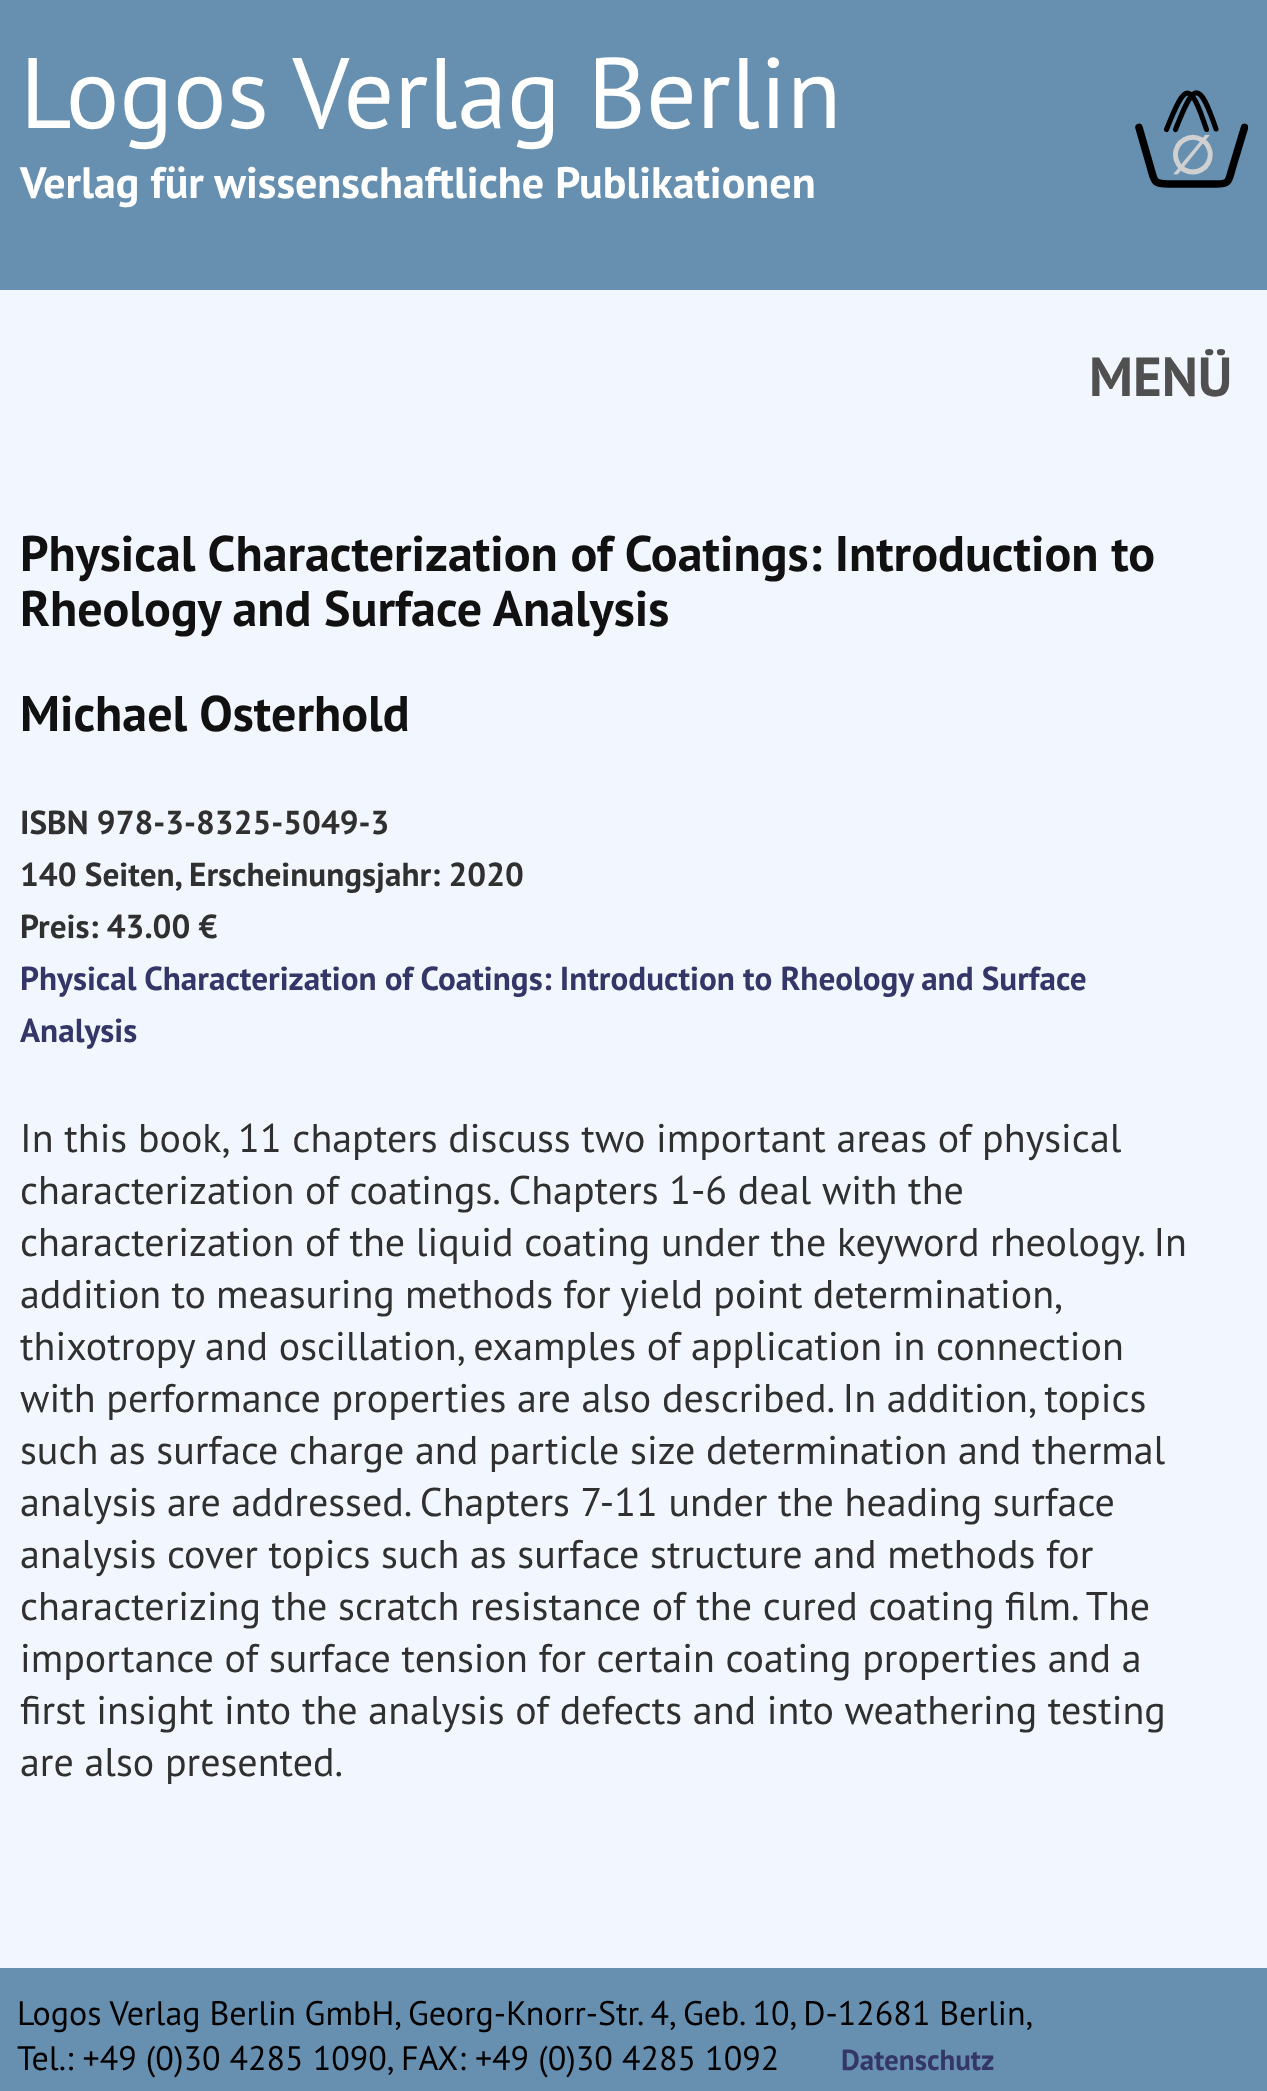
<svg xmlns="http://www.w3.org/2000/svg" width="1267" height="2091">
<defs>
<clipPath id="clip1"><rect x="1135" y="90" width="113" height="98"/></clipPath>
</defs>
<rect width="100%" height="100%" fill="#f2f7ff"/>
<rect width="1267" height="290" fill="#6790b0"/>
<text x="20" y="128" style="font-family:PT Sans;font-size:100px;fill:#fff">Logos Verlag Berlin</text>
<text x="20" y="198" style="font-family:PT Sans;font-size:44px;font-weight:bold;fill:#fff">Verlag für wissenschaftliche Publikationen</text>
<g clip-path="url(#clip1)">
<path d="M1139 127.5l11.5 40c4 14 3 16.5 17.5 16.5h48.5c13 0 12-3 15.5-15l12.5-41.5" fill="none" stroke="#000" stroke-width="7.6" stroke-linecap="round"/>
</g>
<text x="1169" y="174" style="font-family:DejaVu Sans;font-size:53px;font-weight:bold;fill:#d0d0d0">∅</text>
<path d="M1166.5 129.5c18.5-47 23.5-50 40 0m-31 0c18.5-47.5 23.5-50 40.5-.5" fill="none" stroke="#000" stroke-width="5.1" stroke-linecap="round"/>
<text x="1089" y="396" style="font-family:PT Sans;font-size:55px;font-weight:bold;fill:#505050">MENÜ</text>
<text x="20" y="571" style="font-family:PT Sans;font-size:50px;font-weight:bold;fill:#111">Physical Characterization of Coatings: Introduction to</text>
<text x="20" y="626" style="font-family:PT Sans;font-size:50px;font-weight:bold;fill:#111">Rheology and Surface Analysis</text>
<text x="20" y="731" style="font-family:PT Sans;font-size:50px;font-weight:bold;fill:#111">Michael Osterhold</text>
<text x="20" y="834" style="font-family:PT Sans;font-size:33.2px;font-weight:bold;fill:#303030">ISBN 978-3-8325-5049-3</text>
<text x="20" y="886" style="font-family:PT Sans;font-size:33.2px;font-weight:bold;fill:#303030">140 Seiten, Erscheinungsjahr: 2020</text>
<text x="20" y="938" style="font-family:PT Sans;font-size:33.2px;font-weight:bold;fill:#303030">Preis: 43.00 €</text>
<text x="20" y="990" word-spacing="-0.25" style="font-family:PT Sans;font-size:33.2px;font-weight:bold;fill:#343668">Physical Characterization of Coatings: Introduction to Rheology and Surface</text>
<text x="20" y="1042" style="font-family:PT Sans;font-size:33.2px;font-weight:bold;fill:#343668">Analysis</text>
<text x="20" y="1152" style="font-family:PT Sans;font-size:40px;fill:#303030">In this book, 11 chapters discuss two important areas of physical</text>
<text x="20" y="1204" style="font-family:PT Sans;font-size:40px;fill:#303030">characterization of coatings. Chapters 1-6 deal with the</text>
<text x="20" y="1256" style="font-family:PT Sans;font-size:40px;fill:#303030">characterization of the liquid coating under the keyword rheology. In</text>
<text x="20" y="1308" word-spacing="-0.5" style="font-family:PT Sans;font-size:40px;fill:#303030">addition to measuring methods for yield point determination,</text>
<text x="20" y="1360" style="font-family:PT Sans;font-size:40px;fill:#303030">thixotropy and oscillation, examples of application in connection</text>
<text x="20" y="1412" style="font-family:PT Sans;font-size:40px;fill:#303030">with performance properties are also described. In addition, topics</text>
<text x="20" y="1464" style="font-family:PT Sans;font-size:40px;fill:#303030">such as surface charge and particle size determination and thermal</text>
<text x="20" y="1516" style="font-family:PT Sans;font-size:40px;fill:#303030">analysis are addressed. Chapters 7-11 under the heading surface</text>
<text x="20" y="1568" style="font-family:PT Sans;font-size:40px;fill:#303030">analysis cover topics such as surface structure and methods for</text>
<text x="20" y="1620" style="font-family:PT Sans;font-size:40px;fill:#303030">characterizing the scratch resistance of the cured coating film. The</text>
<text x="20" y="1672" style="font-family:PT Sans;font-size:40px;fill:#303030">importance of surface tension for certain coating properties and a</text>
<text x="20" y="1724" style="font-family:PT Sans;font-size:40px;fill:#303030">first insight into the analysis of defects and into weathering testing</text>
<text x="20" y="1776" style="font-family:PT Sans;font-size:40px;fill:#303030">are also presented.</text>
<rect y="1968" width="1267" height="123" fill="#6790b0"/>
<text x="17" y="2025" word-spacing="-0.25" style="font-family:PT Sans;font-size:34px;fill:#000">Logos Verlag Berlin GmbH, Georg-Knorr-Str. 4, Geb. 10, D-12681 Berlin,</text>
<text x="17" y="2070" style="font-family:PT Sans;font-size:34px;fill:#000">Tel.: +49 (0)30 4285 1090, FAX: +49 (0)30 4285 1092</text>
<text x="841" y="2070" style="font-family:PT Sans;font-size:29px;font-weight:bold;fill:#343668">Datenschutz</text>
</svg>
